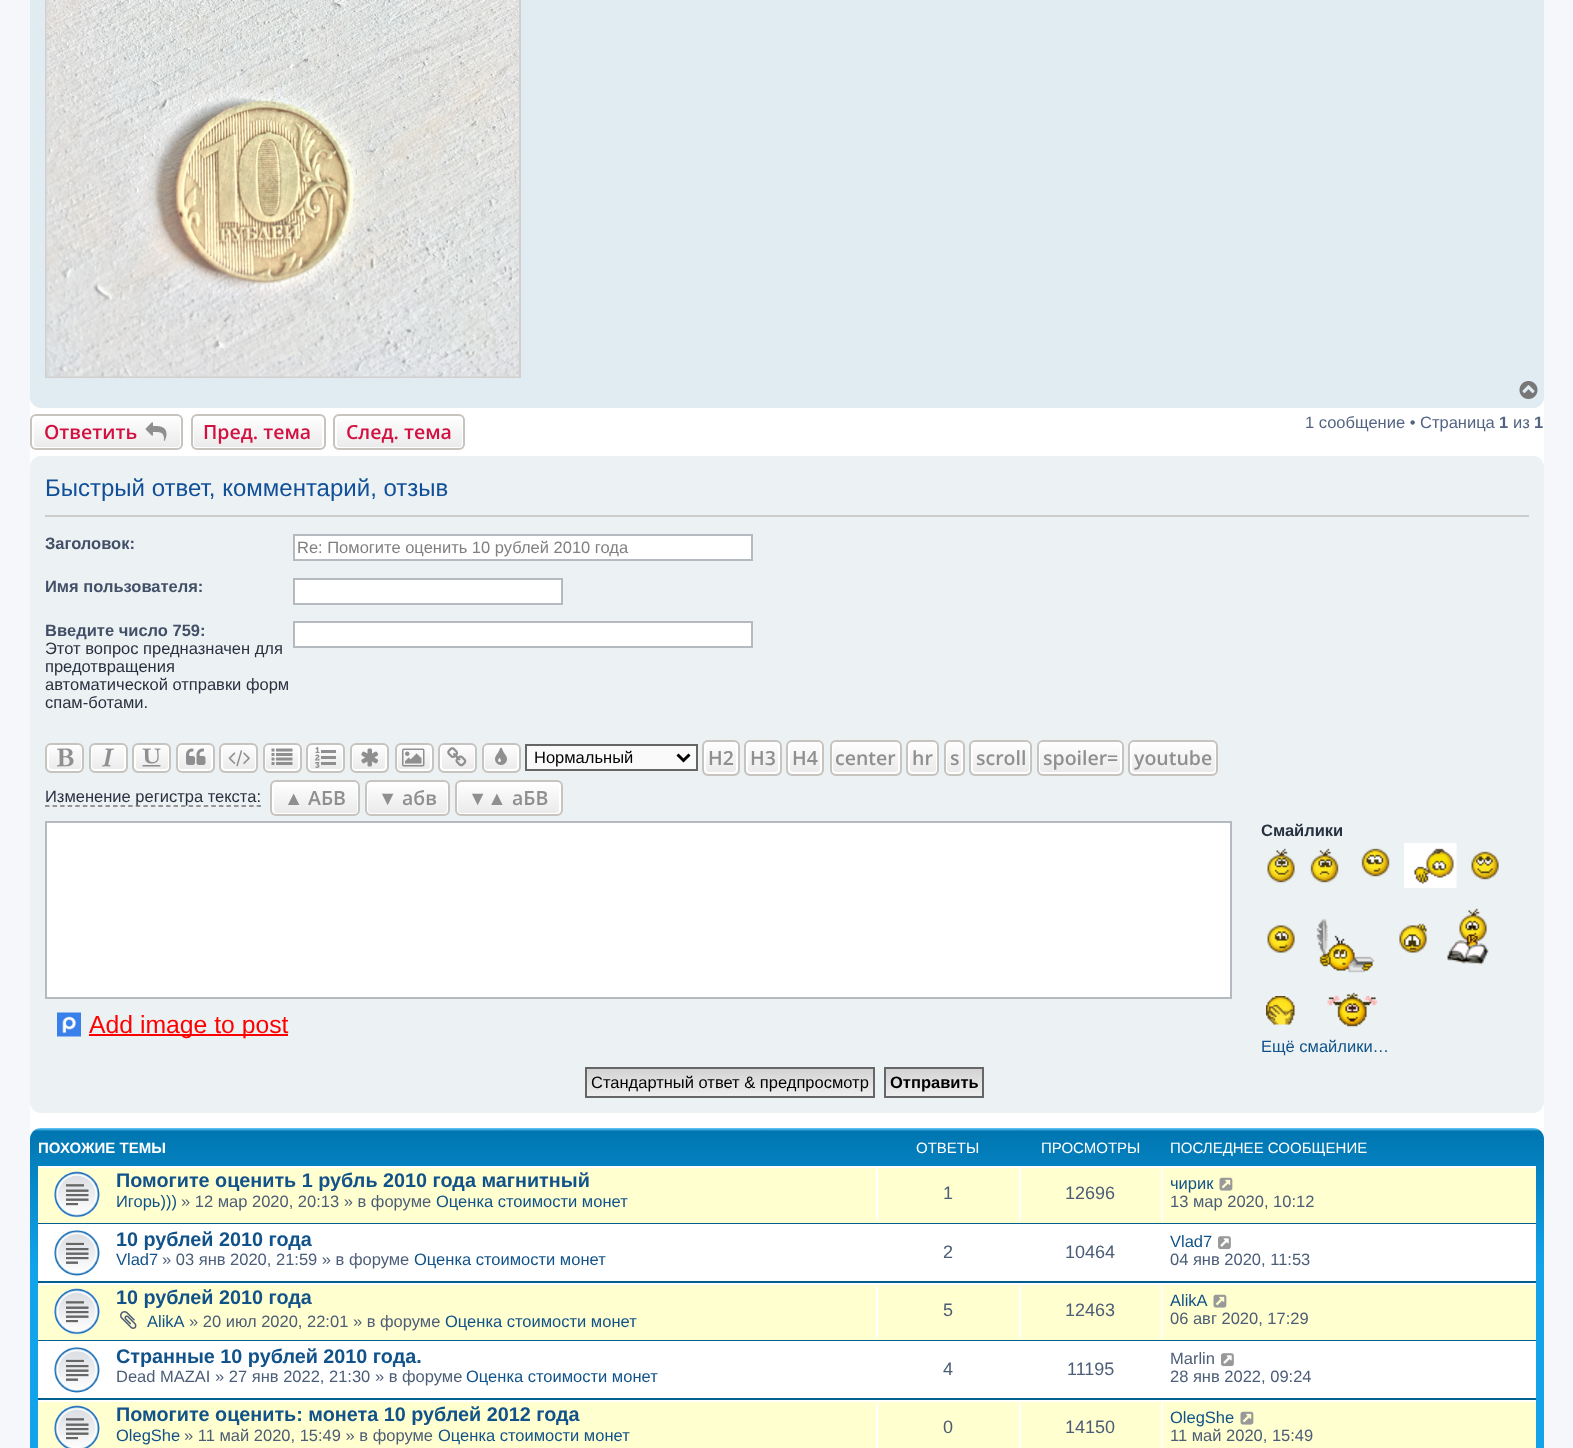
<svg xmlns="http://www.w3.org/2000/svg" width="1573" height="1448">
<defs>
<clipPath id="clip1"><rect x="30" y="414" width="153" height="36" rx="6"/></clipPath>
<linearGradient id="g1" gradientUnits="userSpaceOnUse" x1="107" y1="416" x2="107" y2="449"><stop offset="0" stop-color="#fff"/><stop offset="1" stop-color="#e9e9e9"/></linearGradient>
<clipPath id="clip2"><rect x="191" y="414" width="135" height="36" rx="6"/></clipPath>
<linearGradient id="g2" gradientUnits="userSpaceOnUse" x1="258" y1="416" x2="258" y2="449"><stop offset="0" stop-color="#fff"/><stop offset="1" stop-color="#e9e9e9"/></linearGradient>
<clipPath id="clip3"><rect x="333" y="414" width="132" height="36" rx="6"/></clipPath>
<linearGradient id="g3" gradientUnits="userSpaceOnUse" x1="399" y1="416" x2="399" y2="449"><stop offset="0" stop-color="#fff"/><stop offset="1" stop-color="#e9e9e9"/></linearGradient>
<clipPath id="clip4"><rect x="45" y="743" width="39" height="30" rx="6"/></clipPath>
<linearGradient id="g4" gradientUnits="userSpaceOnUse" x1="65" y1="744" x2="65" y2="771"><stop offset="0" stop-color="#fff"/><stop offset="1" stop-color="#e9e9e9"/></linearGradient>
<clipPath id="clip5"><rect x="89" y="743" width="39" height="30" rx="6"/></clipPath>
<linearGradient id="g5" gradientUnits="userSpaceOnUse" x1="108" y1="744" x2="108" y2="771"><stop offset="0" stop-color="#fff"/><stop offset="1" stop-color="#e9e9e9"/></linearGradient>
<clipPath id="clip6"><rect x="132" y="743" width="39" height="30" rx="6"/></clipPath>
<linearGradient id="g6" gradientUnits="userSpaceOnUse" x1="152" y1="744" x2="152" y2="771"><stop offset="0" stop-color="#fff"/><stop offset="1" stop-color="#e9e9e9"/></linearGradient>
<clipPath id="clip7"><rect x="176" y="743" width="39" height="30" rx="6"/></clipPath>
<linearGradient id="g7" gradientUnits="userSpaceOnUse" x1="195" y1="744" x2="195" y2="771"><stop offset="0" stop-color="#fff"/><stop offset="1" stop-color="#e9e9e9"/></linearGradient>
<clipPath id="clip8"><rect x="219" y="743" width="39" height="30" rx="6"/></clipPath>
<linearGradient id="g8" gradientUnits="userSpaceOnUse" x1="239" y1="744" x2="239" y2="771"><stop offset="0" stop-color="#fff"/><stop offset="1" stop-color="#e9e9e9"/></linearGradient>
<clipPath id="clip9"><rect x="263" y="743" width="39" height="30" rx="6"/></clipPath>
<linearGradient id="g9" gradientUnits="userSpaceOnUse" x1="282" y1="744" x2="282" y2="771"><stop offset="0" stop-color="#fff"/><stop offset="1" stop-color="#e9e9e9"/></linearGradient>
<clipPath id="clip10"><rect x="306" y="743" width="39" height="30" rx="6"/></clipPath>
<linearGradient id="g10" gradientUnits="userSpaceOnUse" x1="326" y1="744" x2="326" y2="771"><stop offset="0" stop-color="#fff"/><stop offset="1" stop-color="#e9e9e9"/></linearGradient>
<clipPath id="clip11"><rect x="350" y="743" width="39" height="30" rx="6"/></clipPath>
<linearGradient id="g11" gradientUnits="userSpaceOnUse" x1="369" y1="744" x2="369" y2="771"><stop offset="0" stop-color="#fff"/><stop offset="1" stop-color="#e9e9e9"/></linearGradient>
<clipPath id="clip12"><rect x="395" y="743" width="39" height="30" rx="6"/></clipPath>
<linearGradient id="g12" gradientUnits="userSpaceOnUse" x1="414" y1="744" x2="414" y2="771"><stop offset="0" stop-color="#fff"/><stop offset="1" stop-color="#e9e9e9"/></linearGradient>
<clipPath id="clip13"><rect x="438" y="743" width="39" height="30" rx="6"/></clipPath>
<linearGradient id="g13" gradientUnits="userSpaceOnUse" x1="458" y1="744" x2="458" y2="771"><stop offset="0" stop-color="#fff"/><stop offset="1" stop-color="#e9e9e9"/></linearGradient>
<clipPath id="clip14"><rect x="482" y="743" width="39" height="30" rx="6"/></clipPath>
<linearGradient id="g14" gradientUnits="userSpaceOnUse" x1="501" y1="744" x2="501" y2="771"><stop offset="0" stop-color="#fff"/><stop offset="1" stop-color="#e9e9e9"/></linearGradient>
<clipPath id="clip15"><rect x="702" y="740" width="38" height="36" rx="6"/></clipPath>
<linearGradient id="g15" gradientUnits="userSpaceOnUse" x1="721" y1="741" x2="721" y2="774"><stop offset="0" stop-color="#fff"/><stop offset="1" stop-color="#e9e9e9"/></linearGradient>
<clipPath id="clip16"><rect x="744" y="740" width="38" height="36" rx="6"/></clipPath>
<linearGradient id="g16" gradientUnits="userSpaceOnUse" x1="763" y1="741" x2="763" y2="774"><stop offset="0" stop-color="#fff"/><stop offset="1" stop-color="#e9e9e9"/></linearGradient>
<clipPath id="clip17"><rect x="786" y="740" width="38" height="36" rx="6"/></clipPath>
<linearGradient id="g17" gradientUnits="userSpaceOnUse" x1="805" y1="741" x2="805" y2="774"><stop offset="0" stop-color="#fff"/><stop offset="1" stop-color="#e9e9e9"/></linearGradient>
<clipPath id="clip18"><rect x="830" y="740" width="72" height="36" rx="6"/></clipPath>
<linearGradient id="g18" gradientUnits="userSpaceOnUse" x1="866" y1="741" x2="866" y2="774"><stop offset="0" stop-color="#fff"/><stop offset="1" stop-color="#e9e9e9"/></linearGradient>
<clipPath id="clip19"><rect x="906" y="740" width="33" height="36" rx="6"/></clipPath>
<linearGradient id="g19" gradientUnits="userSpaceOnUse" x1="923" y1="741" x2="923" y2="774"><stop offset="0" stop-color="#fff"/><stop offset="1" stop-color="#e9e9e9"/></linearGradient>
<clipPath id="clip20"><rect x="944" y="740" width="21" height="36" rx="6"/></clipPath>
<linearGradient id="g20" gradientUnits="userSpaceOnUse" x1="954" y1="741" x2="954" y2="774"><stop offset="0" stop-color="#fff"/><stop offset="1" stop-color="#e9e9e9"/></linearGradient>
<clipPath id="clip21"><rect x="969" y="740" width="63" height="36" rx="6"/></clipPath>
<linearGradient id="g21" gradientUnits="userSpaceOnUse" x1="1001" y1="741" x2="1001" y2="774"><stop offset="0" stop-color="#fff"/><stop offset="1" stop-color="#e9e9e9"/></linearGradient>
<clipPath id="clip22"><rect x="1037" y="740" width="87" height="36" rx="6"/></clipPath>
<linearGradient id="g22" gradientUnits="userSpaceOnUse" x1="1080" y1="741" x2="1080" y2="774"><stop offset="0" stop-color="#fff"/><stop offset="1" stop-color="#e9e9e9"/></linearGradient>
<clipPath id="clip23"><rect x="1128" y="740" width="90" height="36" rx="6"/></clipPath>
<linearGradient id="g23" gradientUnits="userSpaceOnUse" x1="1173" y1="741" x2="1173" y2="774"><stop offset="0" stop-color="#fff"/><stop offset="1" stop-color="#e9e9e9"/></linearGradient>
<clipPath id="clip24"><rect x="270" y="780" width="90" height="36" rx="6"/></clipPath>
<linearGradient id="g24" gradientUnits="userSpaceOnUse" x1="315" y1="782" x2="315" y2="815"><stop offset="0" stop-color="#fff"/><stop offset="1" stop-color="#e9e9e9"/></linearGradient>
<clipPath id="clip25"><rect x="365" y="780" width="85" height="36" rx="6"/></clipPath>
<linearGradient id="g25" gradientUnits="userSpaceOnUse" x1="407" y1="782" x2="407" y2="815"><stop offset="0" stop-color="#fff"/><stop offset="1" stop-color="#e9e9e9"/></linearGradient>
<clipPath id="clip26"><rect x="455" y="780" width="108" height="36" rx="6"/></clipPath>
<linearGradient id="g26" gradientUnits="userSpaceOnUse" x1="509" y1="782" x2="509" y2="815"><stop offset="0" stop-color="#fff"/><stop offset="1" stop-color="#e9e9e9"/></linearGradient>
<linearGradient id="g27" gradientUnits="userSpaceOnUse" x1="730" y1="1068" x2="730" y2="1097"><stop offset="0" stop-color="#d2d2d2"/><stop offset="1" stop-color="#efefef"/></linearGradient>
<linearGradient id="g28" gradientUnits="userSpaceOnUse" x1="934" y1="1068" x2="934" y2="1097"><stop offset="0" stop-color="#d2d2d2"/><stop offset="1" stop-color="#efefef"/></linearGradient>
<linearGradient id="g29" gradientUnits="userSpaceOnUse" x1="787" y1="1128" x2="787" y2="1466"><stop offset="0" stop-color="#6aceff"/><stop offset="0.01" stop-color="#0076b1"/><stop offset="0.41" stop-color="#12a3eb"/><stop offset="1" stop-color="#12a3eb"/></linearGradient>
</defs>
<rect width="100%" height="100%" fill="#f5f7fa"/>
<rect x="30" y="397" width="1514" height="742" fill="#fff"/>
<rect x="30" y="-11" width="1514" height="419" rx="11" fill="#e1ebf2"/>
<rect x="46" y="-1" width="474" height="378" fill="none" stroke="#d0d0d0" stroke-width="2"/>
<image x="46" y="0" width="473" height="377" href="media/1.png"/>
<image x="1519" y="381" width="19" height="18" href="media/2.png"/>
<g clip-path="url(#clip1)">
<rect x="30" y="416" width="153" height="33" fill="url(#g1)"/>
</g>
<rect x="33" y="417" width="148" height="31" rx="4" fill="none" stroke="#fff" stroke-width="2"/>
<rect x="31" y="415" width="151" height="34" rx="5" fill="none" stroke="#c7c3bf" stroke-width="2"/>
<text x="44" y="439" style="font-family:Open Sans;font-size:19.5px;font-weight:600;fill:#d31141">Ответить</text>
<image x="145" y="422" width="22" height="19" href="media/3.png"/>
<g clip-path="url(#clip2)">
<rect x="191" y="416" width="135" height="33" fill="url(#g2)"/>
</g>
<rect x="193" y="417" width="130" height="31" rx="4" fill="none" stroke="#fff" stroke-width="2"/>
<rect x="192" y="415" width="133" height="34" rx="5" fill="none" stroke="#c7c3bf" stroke-width="2"/>
<text x="203" y="439" style="font-family:Open Sans;font-size:19.5px;font-weight:600;fill:#d31141">Пред. тема</text>
<g clip-path="url(#clip3)">
<rect x="333" y="416" width="132" height="33" fill="url(#g3)"/>
</g>
<rect x="336" y="417" width="127" height="31" rx="4" fill="none" stroke="#fff" stroke-width="2"/>
<rect x="334" y="415" width="130" height="34" rx="5" fill="none" stroke="#c7c3bf" stroke-width="2"/>
<text x="346" y="439" style="font-family:Open Sans;font-size:19.5px;font-weight:600;fill:#d31141">След. тема</text>
<text x="1305" y="428" style="font-family:Liberation Sans;font-size:16.5px;fill:#536482">1 сообщение • Страница</text>
<text x="1499" y="428" style="font-family:Liberation Sans;font-size:16.5px;font-weight:bold;fill:#536482">1</text>
<text x="1513" y="428" style="font-family:Liberation Sans;font-size:16.5px;fill:#536482">из</text>
<text x="1534" y="428" style="font-family:Liberation Sans;font-size:16.5px;font-weight:bold;fill:#536482">1</text>
<rect x="30" y="456" width="1514" height="657" rx="11" fill="#ecf1f3"/>
<rect x="45" y="515" width="1484" height="2" fill="#ccc"/>
<text x="45" y="496" style="font-family:Liberation Sans;font-size:24px;fill:#115098">Быстрый ответ, комментарий, отзыв</text>
<text x="45" y="549" style="font-family:Liberation Sans;font-size:16.5px;font-weight:bold;fill:#425067">Заголовок:</text>
<rect x="294" y="535" width="458" height="25" fill="#fff" stroke="#b4bac0" stroke-width="2"/>
<text x="297" y="553" style="font-family:Liberation Sans;font-size:16.5px;fill:#808080">Re: Помогите оценить 10 рублей 2010 года</text>
<text x="45" y="592" style="font-family:Liberation Sans;font-size:16.5px;font-weight:bold;fill:#425067">Имя пользователя:</text>
<rect x="294" y="579" width="268" height="25" fill="#fff" stroke="#b4bac0" stroke-width="2"/>
<text x="45" y="636" style="font-family:Liberation Sans;font-size:16.5px;font-weight:bold;fill:#425067">Ввeдите число 759:</text>
<text x="45" y="654" style="font-family:Liberation Sans;font-size:16.5px;fill:#28313f">Этот вопрос предназначен для</text>
<text x="45" y="672" style="font-family:Liberation Sans;font-size:16.5px;fill:#28313f">предотвращения</text>
<text x="45" y="690" style="font-family:Liberation Sans;font-size:16.5px;fill:#28313f">автоматической отправки форм</text>
<text x="45" y="708" style="font-family:Liberation Sans;font-size:16.5px;fill:#28313f">спам-ботами.</text>
<rect x="294" y="622" width="458" height="25" fill="#fff" stroke="#b4bac0" stroke-width="2"/>
<g clip-path="url(#clip4)">
<rect x="45" y="744" width="39" height="27" fill="url(#g4)"/>
</g>
<rect x="48" y="745" width="34" height="25" rx="4" fill="none" stroke="#fff" stroke-width="2"/>
<rect x="46" y="744" width="37" height="28" rx="5" fill="none" stroke="#c7c3bf" stroke-width="2"/>
<image x="57" y="748" width="17" height="19" href="media/4.png"/>
<g clip-path="url(#clip5)">
<rect x="89" y="744" width="39" height="27" fill="url(#g5)"/>
</g>
<rect x="91" y="745" width="34" height="25" rx="4" fill="none" stroke="#fff" stroke-width="2"/>
<rect x="90" y="744" width="37" height="28" rx="5" fill="none" stroke="#c7c3bf" stroke-width="2"/>
<image x="102" y="748" width="12" height="19" href="media/5.png"/>
<g clip-path="url(#clip6)">
<rect x="132" y="744" width="39" height="27" fill="url(#g6)"/>
</g>
<rect x="135" y="745" width="34" height="25" rx="4" fill="none" stroke="#fff" stroke-width="2"/>
<rect x="133" y="744" width="37" height="28" rx="5" fill="none" stroke="#c7c3bf" stroke-width="2"/>
<image x="142" y="748" width="19" height="19" href="media/6.png"/>
<g clip-path="url(#clip7)">
<rect x="176" y="744" width="39" height="27" fill="url(#g7)"/>
</g>
<rect x="178" y="745" width="34" height="25" rx="4" fill="none" stroke="#fff" stroke-width="2"/>
<rect x="177" y="744" width="37" height="28" rx="5" fill="none" stroke="#c7c3bf" stroke-width="2"/>
<image x="186" y="748" width="20" height="17" href="media/7.png"/>
<g clip-path="url(#clip8)">
<rect x="219" y="744" width="39" height="27" fill="url(#g8)"/>
</g>
<rect x="222" y="745" width="34" height="25" rx="4" fill="none" stroke="#fff" stroke-width="2"/>
<rect x="220" y="744" width="37" height="28" rx="5" fill="none" stroke="#c7c3bf" stroke-width="2"/>
<image x="228" y="750" width="22" height="17" href="media/8.png"/>
<g clip-path="url(#clip9)">
<rect x="263" y="744" width="39" height="27" fill="url(#g9)"/>
</g>
<rect x="265" y="745" width="34" height="25" rx="4" fill="none" stroke="#fff" stroke-width="2"/>
<rect x="264" y="744" width="37" height="28" rx="5" fill="none" stroke="#c7c3bf" stroke-width="2"/>
<image x="271" y="748" width="22" height="17" href="media/9.png"/>
<g clip-path="url(#clip10)">
<rect x="306" y="744" width="39" height="27" fill="url(#g10)"/>
</g>
<rect x="309" y="745" width="34" height="25" rx="4" fill="none" stroke="#fff" stroke-width="2"/>
<rect x="307" y="744" width="37" height="28" rx="5" fill="none" stroke="#c7c3bf" stroke-width="2"/>
<image x="315" y="747" width="21" height="21" href="media/10.png"/>
<g clip-path="url(#clip11)">
<rect x="350" y="744" width="39" height="27" fill="url(#g11)"/>
</g>
<rect x="352" y="745" width="34" height="25" rx="4" fill="none" stroke="#fff" stroke-width="2"/>
<rect x="351" y="744" width="37" height="28" rx="5" fill="none" stroke="#c7c3bf" stroke-width="2"/>
<image x="361" y="748" width="18" height="19" href="media/11.png"/>
<g clip-path="url(#clip12)">
<rect x="395" y="744" width="39" height="27" fill="url(#g12)"/>
</g>
<rect x="397" y="745" width="34" height="25" rx="4" fill="none" stroke="#fff" stroke-width="2"/>
<rect x="396" y="744" width="37" height="28" rx="5" fill="none" stroke="#c7c3bf" stroke-width="2"/>
<image x="402" y="748" width="23" height="19" href="media/12.png"/>
<g clip-path="url(#clip13)">
<rect x="438" y="744" width="39" height="27" fill="url(#g13)"/>
</g>
<rect x="441" y="745" width="34" height="25" rx="4" fill="none" stroke="#fff" stroke-width="2"/>
<rect x="439" y="744" width="37" height="28" rx="5" fill="none" stroke="#c7c3bf" stroke-width="2"/>
<image x="447" y="747" width="20" height="20" href="media/13.png"/>
<g clip-path="url(#clip14)">
<rect x="482" y="744" width="39" height="27" fill="url(#g14)"/>
</g>
<rect x="484" y="745" width="34" height="25" rx="4" fill="none" stroke="#fff" stroke-width="2"/>
<rect x="483" y="744" width="37" height="28" rx="5" fill="none" stroke="#c7c3bf" stroke-width="2"/>
<image x="495" y="747" width="12" height="18" href="media/14.png"/>
<rect x="526" y="745" width="171" height="25" fill="#fafafa" stroke="#666" stroke-width="2"/>
<path d="M677.5 754.5l6 6l6-6" fill="none" stroke="#000" stroke-width="3"/>
<text x="534" y="763" style="font-family:Liberation Sans;font-size:16.5px;fill:#000">Нормальный</text>
<g clip-path="url(#clip15)">
<rect x="702" y="741" width="38" height="33" fill="url(#g15)"/>
</g>
<rect x="705" y="742" width="32" height="31" rx="4" fill="none" stroke="#fff" stroke-width="2"/>
<rect x="703" y="741" width="36" height="34" rx="5" fill="none" stroke="#c7c3bf" stroke-width="2"/>
<text x="708" y="765" style="font-family:Open Sans;font-size:19.5px;font-weight:600;fill:#8f8f8f">H2</text>
<g clip-path="url(#clip16)">
<rect x="744" y="741" width="38" height="33" fill="url(#g16)"/>
</g>
<rect x="747" y="742" width="32" height="31" rx="4" fill="none" stroke="#fff" stroke-width="2"/>
<rect x="745" y="741" width="36" height="34" rx="5" fill="none" stroke="#c7c3bf" stroke-width="2"/>
<text x="750" y="765" style="font-family:Open Sans;font-size:19.5px;font-weight:600;fill:#8f8f8f">H3</text>
<g clip-path="url(#clip17)">
<rect x="786" y="741" width="38" height="33" fill="url(#g17)"/>
</g>
<rect x="789" y="742" width="32" height="31" rx="4" fill="none" stroke="#fff" stroke-width="2"/>
<rect x="787" y="741" width="36" height="34" rx="5" fill="none" stroke="#c7c3bf" stroke-width="2"/>
<text x="792" y="765" style="font-family:Open Sans;font-size:19.5px;font-weight:600;fill:#8f8f8f">H4</text>
<g clip-path="url(#clip18)">
<rect x="830" y="741" width="72" height="33" fill="url(#g18)"/>
</g>
<rect x="832" y="742" width="67" height="31" rx="4" fill="none" stroke="#fff" stroke-width="2"/>
<rect x="831" y="741" width="70" height="34" rx="5" fill="none" stroke="#c7c3bf" stroke-width="2"/>
<text x="835" y="765" style="font-family:Open Sans;font-size:19.5px;font-weight:600;fill:#8f8f8f">center</text>
<g clip-path="url(#clip19)">
<rect x="906" y="741" width="33" height="33" fill="url(#g19)"/>
</g>
<rect x="909" y="742" width="28" height="31" rx="4" fill="none" stroke="#fff" stroke-width="2"/>
<rect x="907" y="741" width="31" height="34" rx="5" fill="none" stroke="#c7c3bf" stroke-width="2"/>
<text x="912" y="765" style="font-family:Open Sans;font-size:19.5px;font-weight:600;fill:#8f8f8f">hr</text>
<g clip-path="url(#clip20)">
<rect x="944" y="741" width="21" height="33" fill="url(#g20)"/>
</g>
<rect x="946" y="742" width="16" height="31" rx="4" fill="none" stroke="#fff" stroke-width="2"/>
<rect x="945" y="741" width="19" height="34" rx="5" fill="none" stroke="#c7c3bf" stroke-width="2"/>
<text x="950" y="765" style="font-family:Open Sans;font-size:19.5px;font-weight:600;fill:#8f8f8f">s</text>
<g clip-path="url(#clip21)">
<rect x="969" y="741" width="63" height="33" fill="url(#g21)"/>
</g>
<rect x="972" y="742" width="58" height="31" rx="4" fill="none" stroke="#fff" stroke-width="2"/>
<rect x="970" y="741" width="61" height="34" rx="5" fill="none" stroke="#c7c3bf" stroke-width="2"/>
<text x="976" y="765" style="font-family:Open Sans;font-size:19.5px;font-weight:600;fill:#8f8f8f">scroll</text>
<g clip-path="url(#clip22)">
<rect x="1037" y="741" width="87" height="33" fill="url(#g22)"/>
</g>
<rect x="1039" y="742" width="82" height="31" rx="4" fill="none" stroke="#fff" stroke-width="2"/>
<rect x="1038" y="741" width="85" height="34" rx="5" fill="none" stroke="#c7c3bf" stroke-width="2"/>
<text x="1043" y="765" style="font-family:Open Sans;font-size:19.5px;font-weight:600;fill:#8f8f8f">spoiler=</text>
<g clip-path="url(#clip23)">
<rect x="1128" y="741" width="90" height="33" fill="url(#g23)"/>
</g>
<rect x="1131" y="742" width="85" height="31" rx="4" fill="none" stroke="#fff" stroke-width="2"/>
<rect x="1129" y="741" width="88" height="34" rx="5" fill="none" stroke="#c7c3bf" stroke-width="2"/>
<text x="1134" y="765" style="font-family:Open Sans;font-size:19.5px;font-weight:600;fill:#8f8f8f">youtube</text>
<path d="M45 806h216" fill="none" stroke="#777" stroke-width="1.5" stroke-dasharray="4.5 3.06"/>
<text x="45" y="802" style="font-family:Liberation Sans;font-size:16.5px;fill:#28313f">Изменение регистра текста:</text>
<g clip-path="url(#clip24)">
<rect x="270" y="782" width="90" height="33" fill="url(#g24)"/>
</g>
<rect x="273" y="783" width="85" height="31" rx="4" fill="none" stroke="#fff" stroke-width="2"/>
<rect x="271" y="781" width="88" height="34" rx="5" fill="none" stroke="#c7c3bf" stroke-width="2"/>
<text x="284" y="805" style="font-family:Liberation Sans;font-size:19.5px;font-weight:bold;fill:#8f8f8f">▲</text>
<text x="308" y="805" style="font-family:Open Sans;font-size:19.5px;font-weight:600;fill:#8f8f8f">АБВ</text>
<g clip-path="url(#clip25)">
<rect x="365" y="782" width="85" height="33" fill="url(#g25)"/>
</g>
<rect x="367" y="783" width="81" height="31" rx="4" fill="none" stroke="#fff" stroke-width="2"/>
<rect x="366" y="781" width="83" height="34" rx="5" fill="none" stroke="#c7c3bf" stroke-width="2"/>
<text x="378" y="805" style="font-family:Liberation Sans;font-size:19.5px;font-weight:bold;fill:#8f8f8f">▼</text>
<text x="402" y="805" style="font-family:Open Sans;font-size:19.5px;font-weight:600;fill:#8f8f8f">абв</text>
<g clip-path="url(#clip26)">
<rect x="455" y="782" width="108" height="33" fill="url(#g26)"/>
</g>
<rect x="457" y="783" width="103" height="31" rx="4" fill="none" stroke="#fff" stroke-width="2"/>
<rect x="456" y="781" width="106" height="34" rx="5" fill="none" stroke="#c7c3bf" stroke-width="2"/>
<text x="468" y="805" style="font-family:Liberation Sans;font-size:19.5px;font-weight:bold;fill:#8f8f8f">▼▲</text>
<text x="512" y="805" style="font-family:Open Sans;font-size:19.5px;font-weight:600;fill:#8f8f8f">аБВ</text>
<rect x="46" y="822" width="1185" height="176" fill="#fff" stroke="#b4bac0" stroke-width="2"/>
<image x="57" y="1012" width="24" height="25" href="media/15.png"/>
<rect x="89" y="1034" width="199" height="2" fill="#f00"/>
<text x="89" y="1033" style="font-family:Liberation Sans;font-size:24.75px;fill:#f00">Add image to post</text>
<text x="1261" y="836" style="font-family:Liberation Sans;font-size:16.5px;font-weight:bold;fill:#28313f">Смайлики</text>
<image x="1267" y="848" width="28" height="35" href="media/16.png"/>
<image x="1310" y="848" width="29" height="35" href="media/17.png"/>
<image x="1361" y="848" width="29" height="29" href="media/18.png"/>
<image x="1404" y="843" width="53" height="45" href="media/19.png"/>
<image x="1471" y="851" width="28" height="29" href="media/20.png"/>
<image x="1267" y="925" width="28" height="28" href="media/21.png"/>
<image x="1316" y="918" width="59" height="55" href="media/22.png"/>
<image x="1399" y="923" width="28" height="30" href="media/23.png"/>
<image x="1447" y="908" width="42" height="57" href="media/24.png"/>
<image x="1266" y="996" width="29" height="29" href="media/25.png"/>
<image x="1327" y="992" width="51" height="35" href="media/26.png"/>
<text x="1261" y="1052" style="font-family:Liberation Sans;font-size:16.5px;fill:#105289">Ещё смайлики…</text>
<rect x="587" y="1069" width="286" height="27" fill="url(#g27)"/>
<rect x="586" y="1068" width="288" height="29" fill="none" stroke="#666" stroke-width="2"/>
<text x="591" y="1088" style="font-family:Liberation Sans;font-size:16.5px;fill:#000">Стандартный ответ &amp; предпросмотр</text>
<rect x="886" y="1069" width="96" height="27" fill="url(#g28)"/>
<rect x="885" y="1068" width="98" height="29" fill="none" stroke="#666" stroke-width="2"/>
<text x="890" y="1088" style="font-family:Liberation Sans;font-size:16.5px;font-weight:bold;fill:#000">Отправить</text>
<rect x="30" y="1128" width="1514" height="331" rx="11" fill="url(#g29)"/>
<text x="38" y="1153" style="font-family:Liberation Sans;font-size:15px;font-weight:bold;fill:#fff">ПОХОЖИЕ ТЕМЫ</text>
<text x="916" y="1153" style="font-family:Liberation Sans;font-size:15px;fill:#fff">ОТВЕТЫ</text>
<text x="1041" y="1153" style="font-family:Liberation Sans;font-size:15px;fill:#fff">ПРОСМОТРЫ</text>
<text x="1170" y="1153" style="font-family:Liberation Sans;font-size:15px;fill:#fff">ПОСЛЕДНЕЕ СООБЩЕНИЕ</text>
<rect x="38" y="1168" width="1498" height="55" fill="#ffffcf"/>
<rect x="38" y="1166" width="1498" height="2" fill="#fff"/>
<rect x="38" y="1223" width="1498" height="1" fill="#00608f"/>
<image x="54" y="1171" width="46" height="47" href="media/27.png"/>
<text x="116" y="1187" style="font-family:Liberation Sans;font-size:19.8px;font-weight:bold;fill:#105289">Помогите оценить 1 рубль 2010 года магнитный</text>
<text x="116" y="1207" style="font-family:Liberation Sans;font-size:16.5px;fill:#105289">Игорь)))</text>
<text x="181" y="1207" style="font-family:Liberation Sans;font-size:16.5px;fill:#4c5d77">» 12 мар 2020, 20:13 » в форуме</text>
<text x="436" y="1207" style="font-family:Liberation Sans;font-size:16.5px;fill:#105289">Оценка стоимости монет</text>
<rect x="876" y="1169" width="2" height="52" fill="#fff"/>
<text x="943" y="1199" style="font-family:Liberation Sans;font-size:18px;fill:#4c5d77">1</text>
<rect x="1019" y="1169" width="2" height="52" fill="#fff"/>
<text x="1065" y="1199" style="font-family:Liberation Sans;font-size:18px;fill:#4c5d77">12696</text>
<rect x="1161" y="1169" width="2" height="52" fill="#fff"/>
<text x="1170" y="1189" style="font-family:Liberation Sans;font-size:16.5px;fill:#105289">чирик</text>
<image x="1219" y="1177" width="14" height="14" href="media/28.png"/>
<text x="1170" y="1207" style="font-family:Liberation Sans;font-size:16.5px;fill:#4c5d77">13 мар 2020, 10:12</text>
<rect x="38" y="1224" width="1498" height="57" fill="#fff"/>
<rect x="38" y="1281" width="1498" height="2" fill="#00608f"/>
<image x="54" y="1230" width="46" height="46" href="media/29.png"/>
<text x="116" y="1246" style="font-family:Liberation Sans;font-size:19.8px;font-weight:bold;fill:#105289">10 рублей 2010 года</text>
<text x="116" y="1265" style="font-family:Liberation Sans;font-size:16.5px;fill:#105289">Vlad7</text>
<text x="162" y="1265" style="font-family:Liberation Sans;font-size:16.5px;fill:#4c5d77">» 03 янв 2020, 21:59 » в форуме</text>
<text x="414" y="1265" style="font-family:Liberation Sans;font-size:16.5px;fill:#105289">Оценка стоимости монет</text>
<text x="943" y="1258" style="font-family:Liberation Sans;font-size:18px;fill:#4c5d77">2</text>
<text x="1065" y="1258" style="font-family:Liberation Sans;font-size:18px;fill:#4c5d77">10464</text>
<text x="1170" y="1247" style="font-family:Liberation Sans;font-size:16.5px;fill:#105289">Vlad7</text>
<image x="1218" y="1236" width="13" height="14" href="media/30.png"/>
<text x="1170" y="1265" style="font-family:Liberation Sans;font-size:16.5px;fill:#4c5d77">04 янв 2020, 11:53</text>
<rect x="38" y="1285" width="1498" height="55" fill="#ffffcf"/>
<rect x="38" y="1283" width="1498" height="2" fill="#fff"/>
<rect x="38" y="1340" width="1498" height="1" fill="#00608f"/>
<image x="54" y="1288" width="46" height="47" href="media/27.png"/>
<text x="116" y="1304" style="font-family:Liberation Sans;font-size:19.8px;font-weight:bold;fill:#105289">10 рублей 2010 года</text>
<image x="120" y="1311" width="17" height="18" href="media/31.png"/>
<text x="147" y="1327" style="font-family:Liberation Sans;font-size:16.5px;fill:#105289">AlikA</text>
<text x="189" y="1327" style="font-family:Liberation Sans;font-size:16.5px;fill:#4c5d77">» 20 июл 2020, 22:01 » в форуме</text>
<text x="445" y="1327" style="font-family:Liberation Sans;font-size:16.5px;fill:#105289">Оценка стоимости монет</text>
<rect x="876" y="1286" width="2" height="52" fill="#fff"/>
<text x="943" y="1316" style="font-family:Liberation Sans;font-size:18px;fill:#4c5d77">5</text>
<rect x="1019" y="1286" width="2" height="52" fill="#fff"/>
<text x="1065" y="1316" style="font-family:Liberation Sans;font-size:18px;fill:#4c5d77">12463</text>
<rect x="1161" y="1286" width="2" height="52" fill="#fff"/>
<text x="1170" y="1306" style="font-family:Liberation Sans;font-size:16.5px;fill:#105289">AlikA</text>
<image x="1213" y="1294" width="14" height="14" href="media/28.png"/>
<text x="1170" y="1324" style="font-family:Liberation Sans;font-size:16.5px;fill:#4c5d77">06 авг 2020, 17:29</text>
<rect x="38" y="1341" width="1498" height="57" fill="#fff"/>
<rect x="38" y="1398" width="1498" height="2" fill="#00608f"/>
<image x="54" y="1347" width="46" height="46" href="media/29.png"/>
<text x="116" y="1363" style="font-family:Liberation Sans;font-size:19.8px;font-weight:bold;fill:#105289">Странные 10 рублей 2010 года.</text>
<text x="116" y="1382" style="font-family:Liberation Sans;font-size:16.5px;fill:#4c5d77">Dead MAZAI » 27 янв 2022, 21:30 » в форуме</text>
<text x="466" y="1382" style="font-family:Liberation Sans;font-size:16.5px;fill:#105289">Оценка стоимости монет</text>
<text x="943" y="1375" style="font-family:Liberation Sans;font-size:18px;fill:#4c5d77">4</text>
<text x="1067" y="1375" style="font-family:Liberation Sans;font-size:18px;fill:#4c5d77">11195</text>
<text x="1170" y="1364" style="font-family:Liberation Sans;font-size:16.5px;fill:#4c5d77">Marlin</text>
<image x="1221" y="1353" width="13" height="14" href="media/30.png"/>
<text x="1170" y="1382" style="font-family:Liberation Sans;font-size:16.5px;fill:#4c5d77">28 янв 2022, 09:24</text>
<rect x="38" y="1402" width="1498" height="46" fill="#ffffcf"/>
<rect x="38" y="1400" width="1498" height="2" fill="#fff"/>
<image x="54" y="1405" width="46" height="43" href="media/32.png"/>
<text x="116" y="1421" style="font-family:Liberation Sans;font-size:19.8px;font-weight:bold;fill:#105289">Помогите оценить: монета 10 рублей 2012 года</text>
<text x="116" y="1441" style="font-family:Liberation Sans;font-size:16.5px;fill:#105289">OlegShe</text>
<text x="184" y="1441" style="font-family:Liberation Sans;font-size:16.5px;fill:#4c5d77">» 11 май 2020, 15:49 » в форуме</text>
<text x="438" y="1441" style="font-family:Liberation Sans;font-size:16.5px;fill:#105289">Оценка стоимости монет</text>
<rect x="876" y="1403" width="2" height="45" fill="#fff"/>
<text x="943" y="1433" style="font-family:Liberation Sans;font-size:18px;fill:#4c5d77">0</text>
<rect x="1019" y="1403" width="2" height="45" fill="#fff"/>
<text x="1065" y="1433" style="font-family:Liberation Sans;font-size:18px;fill:#4c5d77">14150</text>
<rect x="1161" y="1403" width="2" height="45" fill="#fff"/>
<text x="1170" y="1423" style="font-family:Liberation Sans;font-size:16.5px;fill:#105289">OlegShe</text>
<image x="1240" y="1411" width="14" height="14" href="media/28.png"/>
<text x="1170" y="1441" style="font-family:Liberation Sans;font-size:16.5px;fill:#4c5d77">11 май 2020, 15:49</text>
</svg>
